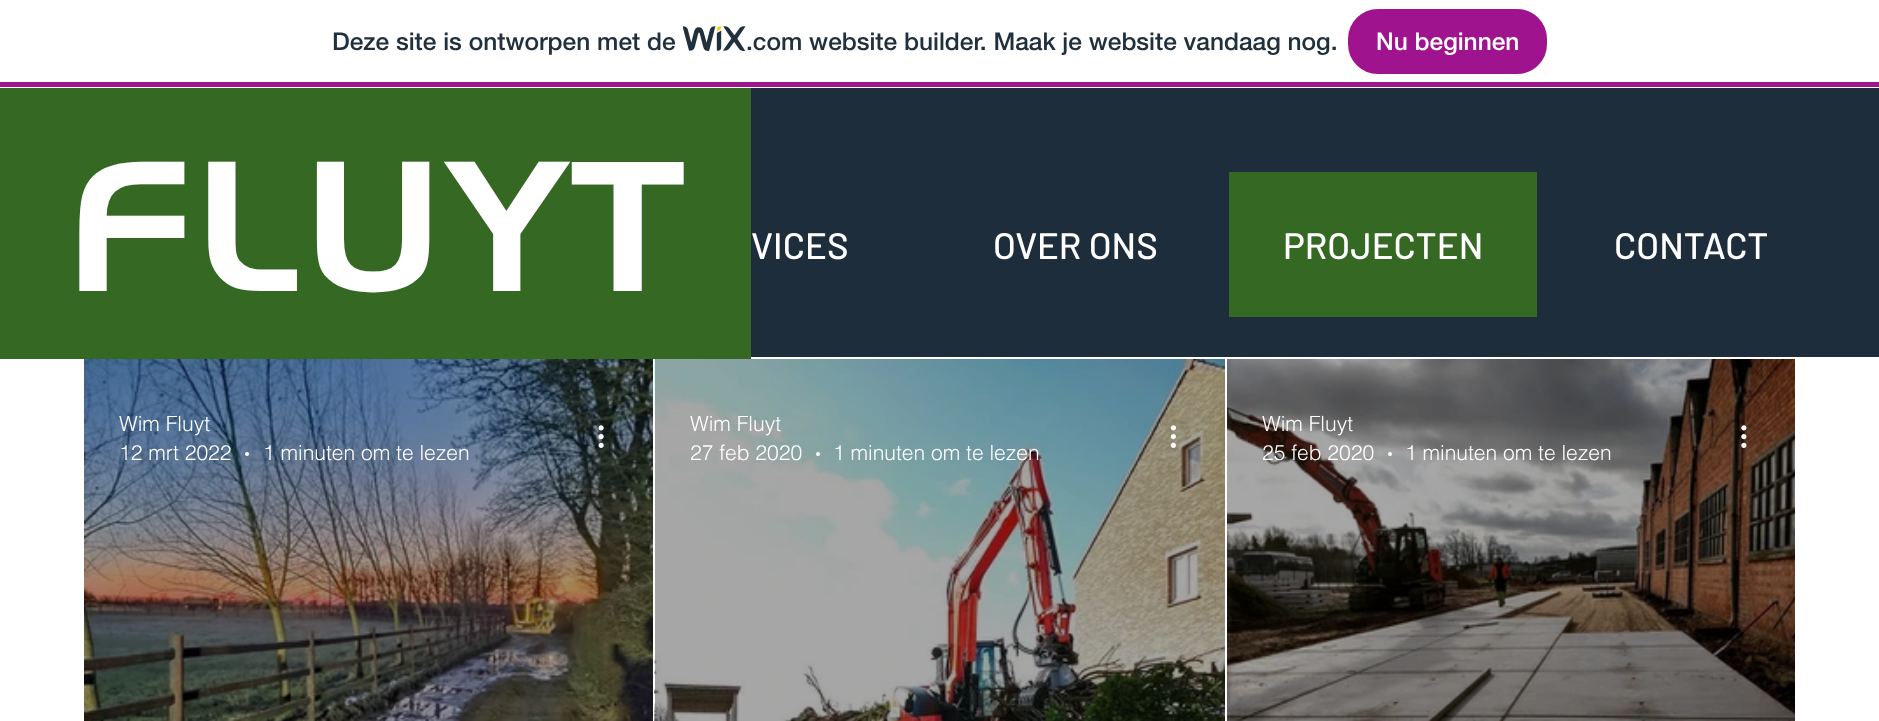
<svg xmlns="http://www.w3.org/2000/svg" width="1879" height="721">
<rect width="100%" height="100%" fill="#fff"/>
<rect y="82" width="1879" height="5" fill="#a0138e"/>
<text x="332" y="50" style="font-family:'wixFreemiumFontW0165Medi';font-size:24.5px;font-weight:500;fill:#20303c">Deze site is ontworpen met de</text>
<image x="683" y="26" width="63" height="26" href="media/1.png"/>
<text x="746" y="50" style="font-family:'wixFreemiumFontW0165Medi';font-size:24.5px;font-weight:500;fill:#20303c">.com website builder. Maak je website vandaag nog.</text>
<rect x="1349" y="10" width="197" height="63" rx="29" fill="#a0138e" stroke="#a0138e" stroke-width="2"/>
<text x="1376" y="50" style="font-family:'wixFreemiumFontW0165Medi';font-size:24.5px;font-weight:500;fill:#fff">Nu beginnen</text>
<rect y="88" width="751" height="271" fill="#356823"/>
<text x="67" y="291" style="font-family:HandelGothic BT;font-size:180px;letter-spacing:9px;fill:#fff">FLUYT</text>
<rect x="751" y="88" width="1128" height="269" fill="#1e2d3b"/>
<text x="751" y="259" style="font-family:Barlow;font-size:36.75px;font-weight:500;fill:#fff">VICES</text>
<text x="993" y="259" style="font-family:Barlow;font-size:36.75px;font-weight:500;fill:#fff">OVER ONS</text>
<rect x="1229" y="172" width="308" height="145" fill="#356823"/>
<text x="1283" y="259" style="font-family:Barlow;font-size:36.75px;font-weight:500;fill:#fff">PROJECTEN</text>
<text x="1614" y="259" style="font-family:Barlow;font-size:36.75px;font-weight:500;fill:#fff">CONTACT</text>
<image x="84" y="359" width="569" height="362" href="media/2.png"/>
<text x="119" y="431" style="font-family:helvetica;font-size:21px;font-weight:300;fill:#fff">Wim Fluyt</text>
<text x="119" y="460" style="font-family:helvetica;font-size:21px;font-weight:300;fill:#fff">12 mrt 2022</text>
<circle cx="247" cy="454" r="2" fill="#fff"/>
<text x="263" y="460" style="font-family:helvetica;font-size:21px;font-weight:300;fill:#fff">1 minuten om te lezen</text>
<image x="598" y="425" width="6" height="23" href="media/3.png"/>
<image x="654" y="359" width="571" height="362" href="media/4.png"/>
<text x="690" y="431" style="font-family:helvetica;font-size:21px;font-weight:300;fill:#fff">Wim Fluyt</text>
<text x="690" y="460" style="font-family:helvetica;font-size:21px;font-weight:300;fill:#fff">27 feb 2020</text>
<circle cx="818" cy="454" r="2" fill="#fff"/>
<text x="833" y="460" style="font-family:helvetica;font-size:21px;font-weight:300;fill:#fff">1 minuten om te lezen</text>
<image x="1170" y="425" width="6" height="23" href="media/5.png"/>
<image x="1227" y="359" width="568" height="362" href="media/6.png"/>
<text x="1262" y="431" style="font-family:helvetica;font-size:21px;font-weight:300;fill:#fff">Wim Fluyt</text>
<text x="1262" y="460" style="font-family:helvetica;font-size:21px;font-weight:300;fill:#fff">25 feb 2020</text>
<circle cx="1390" cy="454" r="2" fill="#fff"/>
<text x="1405" y="460" style="font-family:helvetica;font-size:21px;font-weight:300;fill:#fff">1 minuten om te lezen</text>
<image x="1741" y="425" width="6" height="23" href="media/7.png"/>
</svg>
